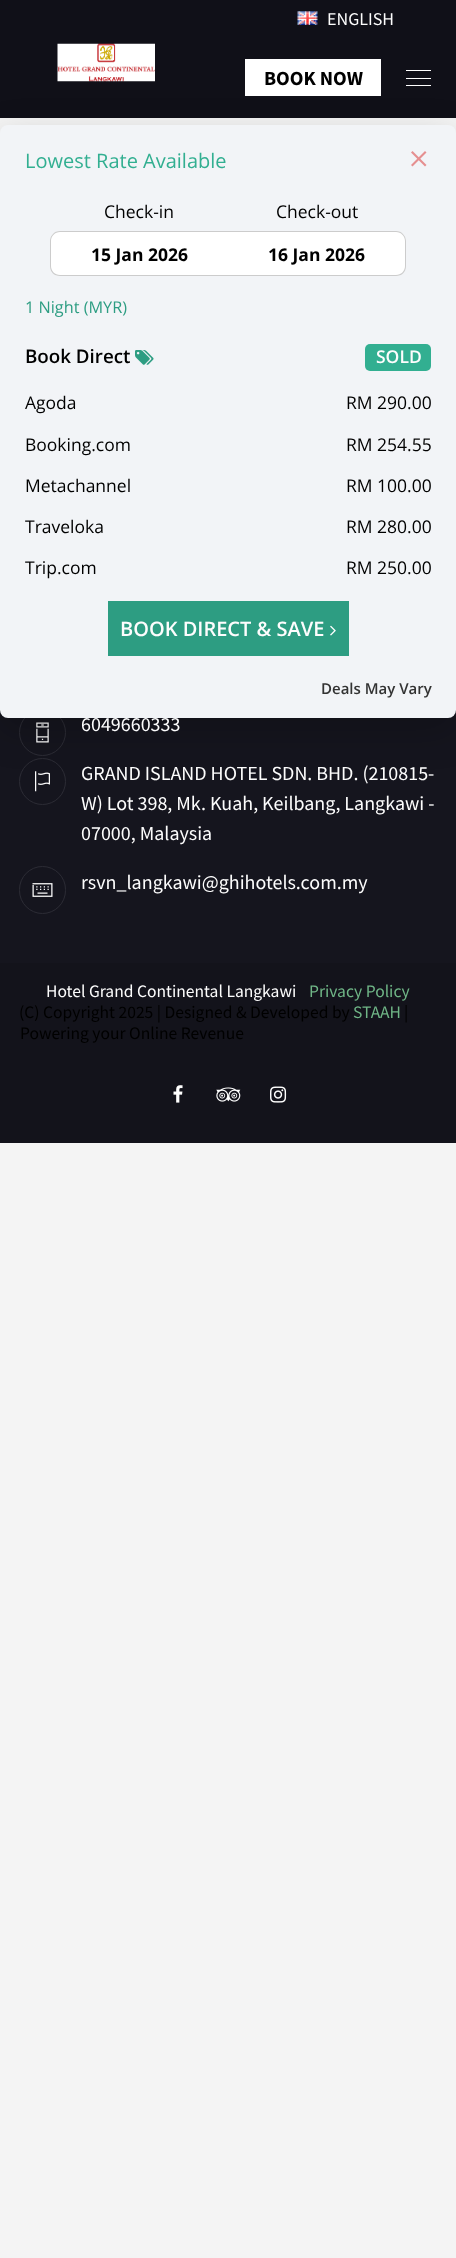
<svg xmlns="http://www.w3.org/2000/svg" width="456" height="2258">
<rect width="100%" height="100%" fill="#f4f4f4"/>
<rect width="456" height="118" fill="#101018"/>
<image x="297" y="11" width="21" height="14" href="media/1.png"/>
<text x="327" y="25" style="font-family:Source Sans Pro;font-size:18px;fill:#fdfdfd">ENGLISH</text>
<image x="57" y="43" width="98" height="39" href="media/2.png"/>
<rect x="245" y="59" width="136" height="37" fill="#fff"/>
<text x="264" y="85" style="font-family:Source Sans Pro;font-size:20px;font-weight:bold;fill:#000">BOOK NOW</text>
<rect x="406" y="70" width="25" height="1" fill="#fff"/>
<rect x="406" y="78" width="25" height="1" fill="#fff"/>
<rect x="406" y="85" width="25" height="1" fill="#fff"/>
<rect y="710" width="456" height="253" fill="#15151e"/>
<circle cx="42.5" cy="732.5" r="23" fill="none" stroke="#2c2c35"/>
<image x="36" y="722" width="13" height="21" href="media/5.png"/>
<circle cx="42.5" cy="781.5" r="23" fill="none" stroke="#2c2c35"/>
<image x="35" y="771" width="15" height="21" href="media/6.png"/>
<rect y="138" width="456" height="592" rx="8" fill="#00000033" filter="blur(19px)"/>
<rect y="125" width="456" height="593" rx="8" fill="#f2f4f7"/>
<text x="25" y="168" style="font-family:Open Sans;font-size:20px;fill:#32af91">Lowest Rate Available</text>
<path d="M425 151l1.5 1.5l-14 14l-1.5-1.5z" fill="#e58f90"/>
<path d="M411 152.5l1.5-1.5l14 14l-1.5 1.5z" fill="#e58f90"/>
<text x="104" y="218" style="font-family:Open Sans;font-size:17.5px;fill:#000">Check-in</text>
<path d="M60 231h169v45h-169c-5.5 0-10-4.5-10-10v-25c0-5.5 4.5-10 10-10z" fill="#fff"/>
<path d="M60 231h169v45h-169c-6 0-10-4-10-10v-25c0-5 4-10 10-10zm0 1h169v43h-169c-5 0-9-4-9-9v-25c0-5 4-9 9-9z" fill="#ccc" fill-rule="evenodd"/>
<text x="91" y="261" style="font-family:Open Sans;font-size:17.5px;font-weight:bold;fill:#000">15 Jan 2026</text>
<text x="276" y="218" style="font-family:Open Sans;font-size:17.5px;fill:#000">Check-out</text>
<path d="M229 231h167c5.5 0 10 4.5 10 10v25c0 5.5-4.5 10-10 10h-167z" fill="#fff"/>
<path d="M229 231h167c6 0 10 5 10 10v25c0 6-4 10-10 10h-167zm0 1h167c5 0 9 4 9 9v25c0 5-4 9-9 9h-167z" fill="#ccc" fill-rule="evenodd"/>
<text x="268" y="261" style="font-family:Open Sans;font-size:17.5px;font-weight:bold;fill:#000">16 Jan 2026</text>
<text x="25" y="313" style="font-family:Open Sans;font-size:16.25px;fill:#2d9d82">1 Night (MYR)</text>
<text x="25" y="363" style="font-family:Open Sans;font-size:18.75px;font-weight:600;fill:#000">Book Direct</text>
<image x="135" y="350" width="19" height="15" href="media/3.png"/>
<rect x="365" y="344" width="66" height="27" rx="5" fill="#32af91"/>
<text x="376" y="363" style="font-family:Open Sans;font-size:17.5px;font-weight:600;fill:#fdfdfd">SOLD</text>
<text x="25" y="409" style="font-family:Open Sans;font-size:17.5px;fill:#000">Agoda</text>
<text x="346" y="409" style="font-family:Open Sans;font-size:17.5px;fill:#000">RM 290.00</text>
<text x="25" y="451" style="font-family:Open Sans;font-size:17.5px;fill:#000">Booking.com</text>
<text x="346" y="451" style="font-family:Open Sans;font-size:17.5px;fill:#000">RM 254.55</text>
<text x="25" y="492" style="font-family:Open Sans;font-size:17.5px;fill:#000">Metachannel</text>
<text x="346" y="492" style="font-family:Open Sans;font-size:17.5px;fill:#000">RM 100.00</text>
<text x="25" y="533" style="font-family:Open Sans;font-size:17.5px;fill:#000">Traveloka</text>
<text x="346" y="533" style="font-family:Open Sans;font-size:17.5px;fill:#000">RM 280.00</text>
<text x="25" y="574" style="font-family:Open Sans;font-size:17.5px;fill:#000">Trip.com</text>
<text x="346" y="574" style="font-family:Open Sans;font-size:17.5px;fill:#000">RM 250.00</text>
<rect x="108" y="601" width="241" height="55" fill="#2d9d82"/>
<text x="120" y="636" style="font-family:Open Sans;font-size:20px;font-weight:600;fill:#fdfdfd">BOOK DIRECT &amp; SAVE</text>
<image x="330" y="625" width="6" height="11" href="media/4.png"/>
<text x="321" y="694" style="font-family:Open Sans;font-size:15px;font-weight:600;fill:#333">Deals May Vary</text>
<text x="81" y="731" style="font-family:Source Sans Pro;font-size:20px;fill:#fdfdfd">6049660333</text>
<text x="81" y="780" style="font-family:Source Sans Pro;font-size:20px;fill:#fdfdfd">GRAND ISLAND HOTEL SDN. BHD. (210815-</text>
<text x="81" y="810" style="font-family:Source Sans Pro;font-size:20px;fill:#fdfdfd">W) Lot 398, Mk. Kuah, Keilbang, Langkawi -</text>
<text x="81" y="840" style="font-family:Source Sans Pro;font-size:20px;fill:#fdfdfd">07000, Malaysia</text>
<rect x="19.5" y="866.5" width="46" height="47" rx="23" fill="none" stroke="#2c2c35"/>
<image x="32" y="883" width="21" height="14" href="media/7.png"/>
<text x="81" y="889" style="font-family:Source Sans Pro;font-size:20px;fill:#fdfdfd">rsvn_langkawi@ghihotels.com.my</text>
<rect y="963" width="456" height="180" fill="#13131b"/>
<text x="46" y="997" style="font-family:Source Sans Pro;font-size:17.5px;fill:#fdfdfd">Hotel Grand Continental Langkawi</text>
<text x="309" y="997" style="font-family:Source Sans Pro;font-size:17.5px;fill:#6fb586">Privacy Policy</text>
<text x="19" y="1018" style="font-family:Source Sans Pro;font-size:17.5px;fill:#000">(C) Copyright 2025 | Designed &amp; Developed by</text>
<text x="353" y="1018" style="font-family:Source Sans Pro;font-size:17.5px;fill:#6fb586">STAAH</text>
<text x="404" y="1018" style="font-family:Source Sans Pro;font-size:17.5px;fill:#000">|</text>
<text x="20" y="1039" style="font-family:Source Sans Pro;font-size:17.5px;fill:#000">Powering your Online Revenue</text>
<image x="173" y="1085" width="10" height="18" href="media/8.png"/>
<image x="216" y="1087" width="25" height="15" href="media/9.png"/>
<image x="270" y="1086" width="17" height="17" href="media/10.png"/>
</svg>
